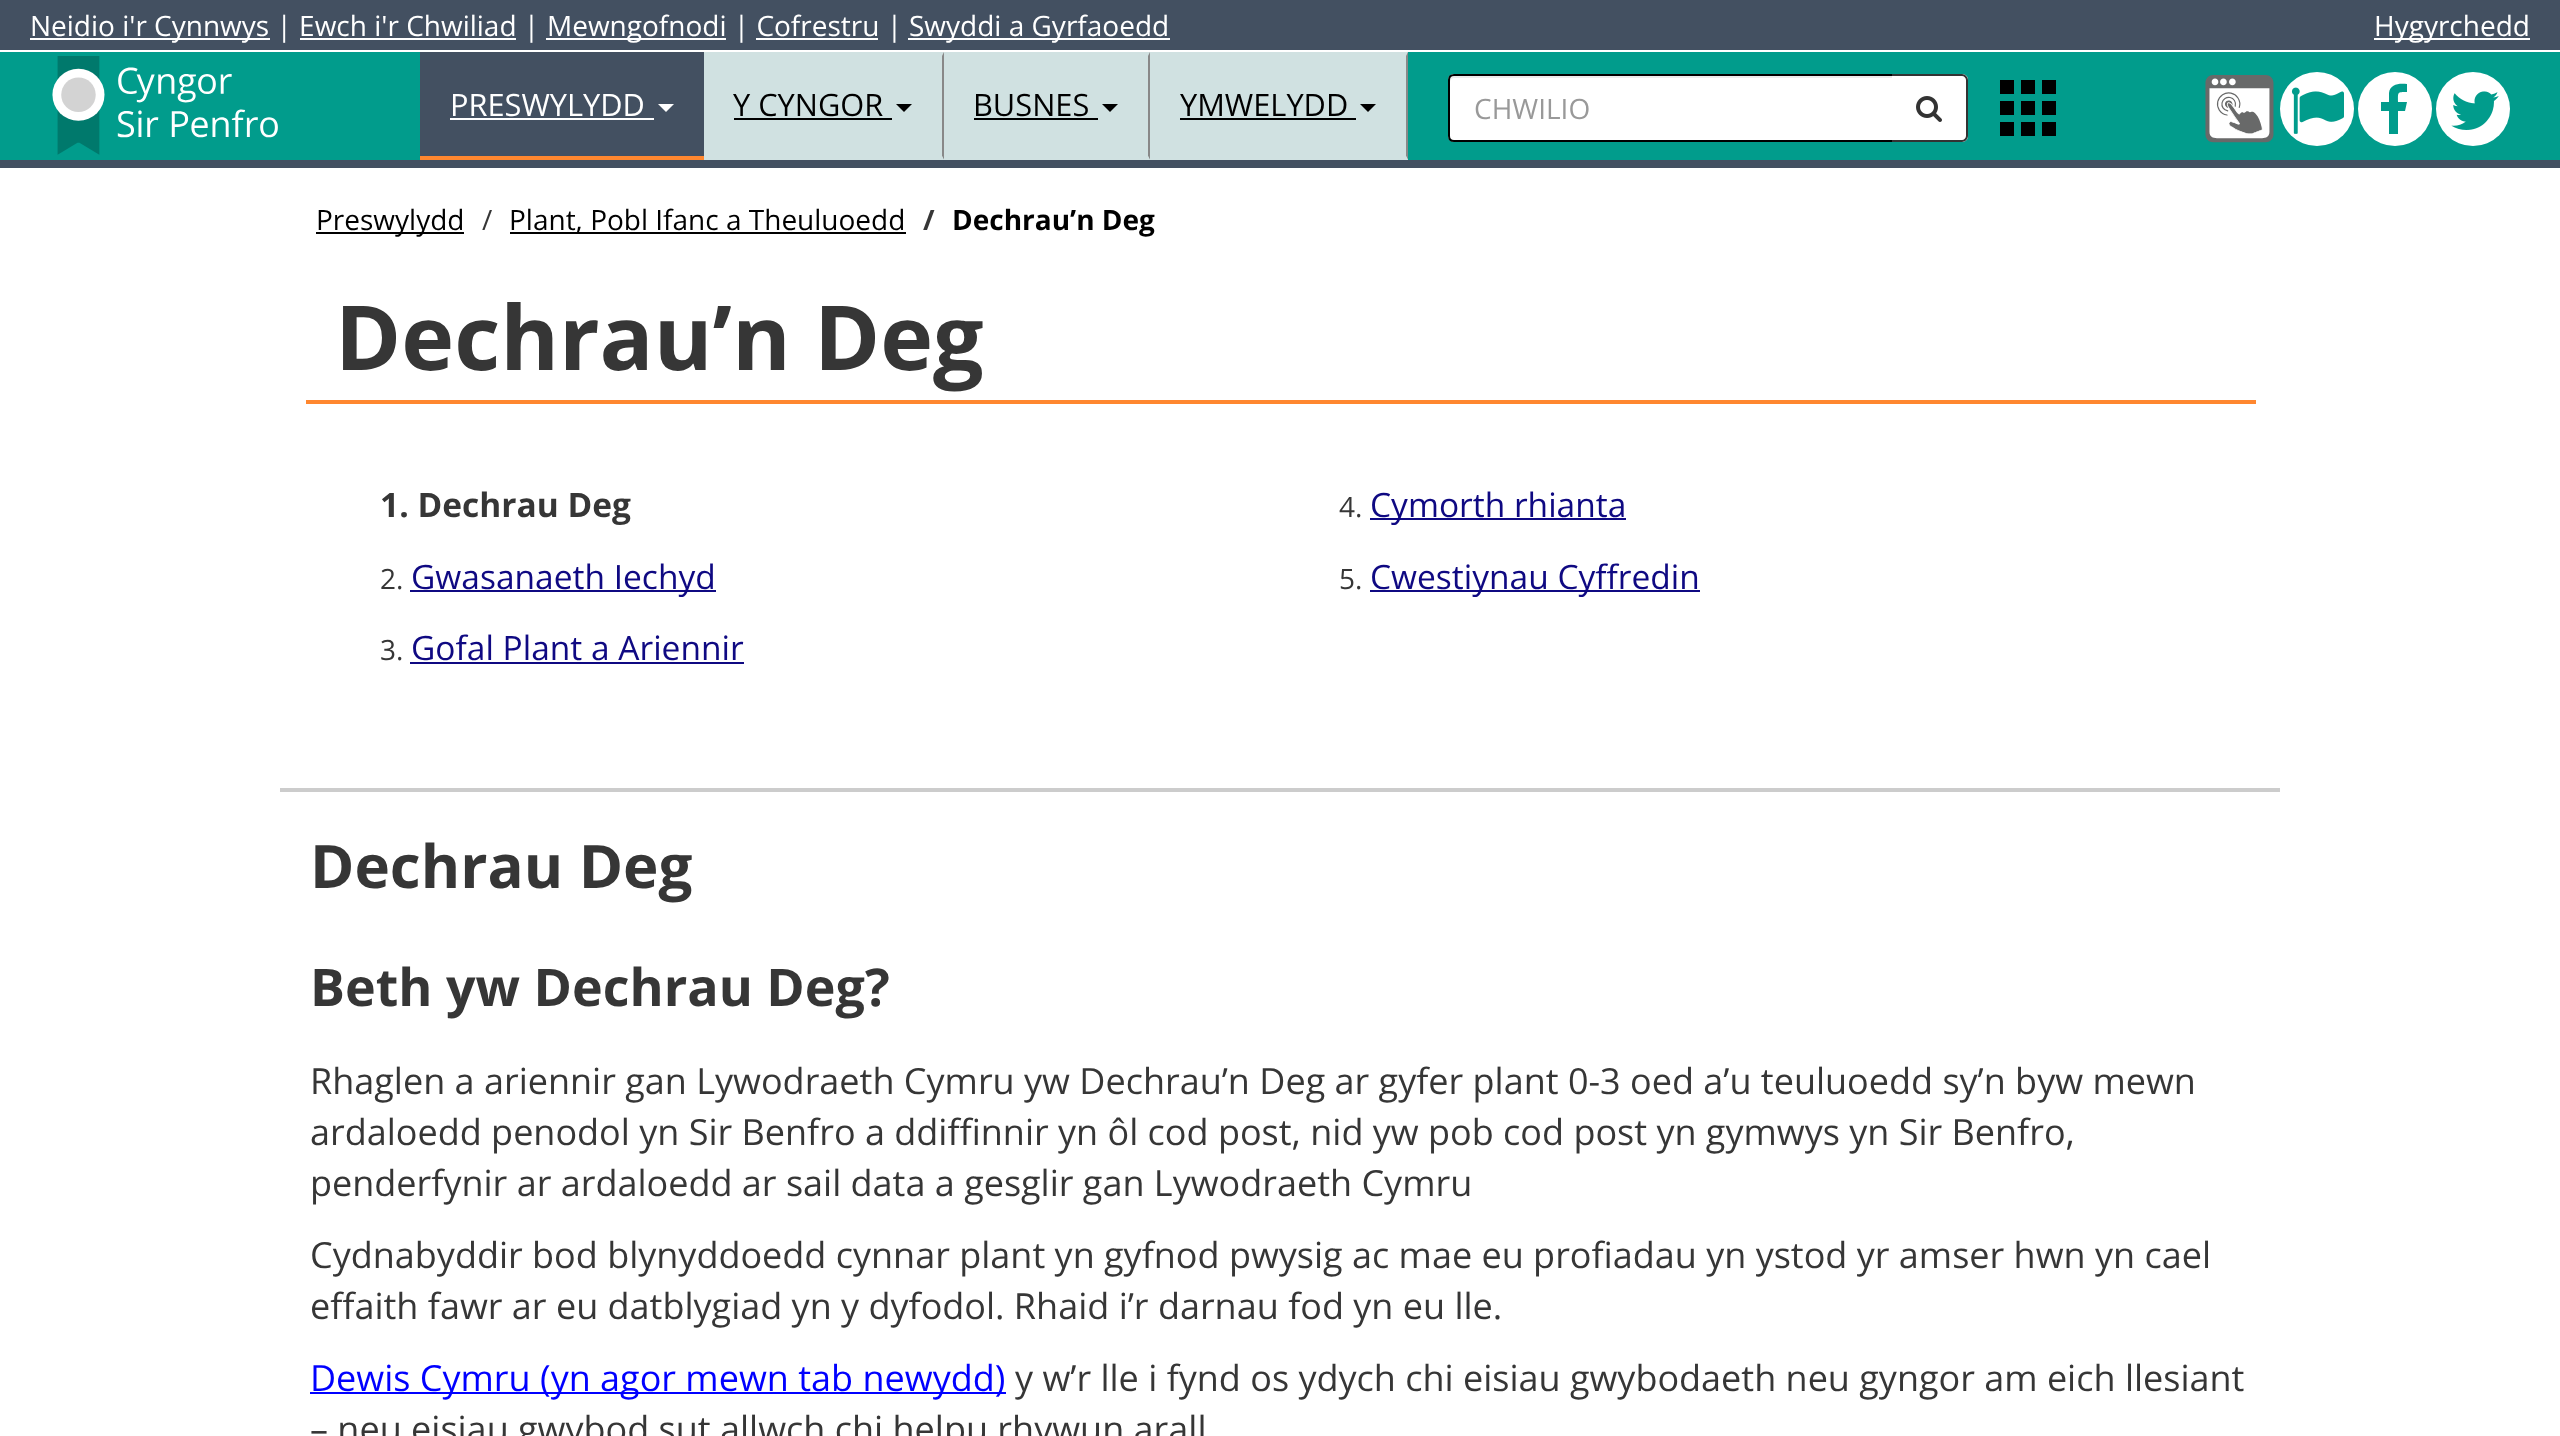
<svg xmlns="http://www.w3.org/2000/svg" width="2560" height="1436">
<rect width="100%" height="100%" fill="#fff"/>
<rect y="52" width="2560" height="108" fill="#019c8c"/>
<rect y="160" width="2560" height="8" fill="#435061"/>
<rect width="2560" height="50" fill="#435061"/>
<rect x="30" y="38" width="240" height="2" fill="#fff"/>
<text x="30" y="36" style="font-family:Open Sans;font-size:28px;fill:#fff">Neidio i'r Cynnwys | Ewch i'r Chwiliad |</text>
<rect x="546" y="38" width="180" height="2" fill="#fff"/>
<text x="547" y="36" style="font-family:Open Sans;font-size:28px;fill:#fff">Mewngofnodi | Cofrestru |</text>
<rect x="908" y="38" width="262" height="2" fill="#fff"/>
<text x="909" y="36" style="font-family:Open Sans;font-size:28px;fill:#fff">Swyddi a Gyrfaoedd</text>
<rect x="2374" y="38" width="156" height="2" fill="#fff"/>
<text x="2374" y="36" style="font-family:Open Sans;font-size:28px;fill:#fff">Hygyrchedd</text>
<rect x="300" y="38" width="216" height="2" fill="#fff"/>
<rect x="756" y="38" width="122" height="2" fill="#fff"/>
<image x="52" y="56" width="226" height="99" href="media/1.png"/>
<rect x="420" y="52" width="284" height="104" fill="#435061"/>
<rect x="420" y="156" width="284" height="4" fill="#ff872f"/>
<text x="450" y="116" style="font-family:Open Sans;font-size:30.75px;fill:#fff">PRESWYLYDD</text>
<rect x="450" y="118" width="204" height="2" fill="#fff"/>
<path d="M658 104h16l-8 8z" fill="#fff"/>
<rect x="704" y="52" width="704" height="108" fill="#d0e1e1"/>
<path d="M944 52v108l-2-4v-100z" fill="#888"/>
<path d="M944 160h-240v-4h238z" fill="#d0e1e1"/>
<text x="733" y="116" style="font-family:Open Sans;font-size:30.75px;fill:#000">Y CYNGOR</text>
<rect x="734" y="118" width="158" height="2" fill="#000"/>
<path d="M896 104h16l-8 8z" fill="#000"/>
<path d="M1150 52v108l-2-4v-100z" fill="#888"/>
<path d="M1150 160h-206v-4h204z" fill="#d0e1e1"/>
<text x="973" y="116" style="font-family:Open Sans;font-size:30.75px;fill:#000">BUSNES</text>
<rect x="974" y="118" width="124" height="2" fill="#000"/>
<path d="M1102 104h16l-8 8z" fill="#000"/>
<path d="M1408 52v108l-2-4v-100z" fill="#888"/>
<path d="M1408 160h-258v-4h256z" fill="#d0e1e1"/>
<text x="1180" y="116" style="font-family:Open Sans;font-size:30.75px;fill:#000">YMWELYDD</text>
<rect x="1180" y="118" width="176" height="2" fill="#000"/>
<path d="M1360 104h16l-8 8z" fill="#000"/>
<path d="M1454 74h440v68h-440c-3.5 0-6-2.5-6-6v-56c0-3.5 2.5-6 6-6z" fill="#fff"/>
<path d="M1454 78h438v-2h-438c-2 0-4 2-4 4v2c0-2 2-4 4-4z" fill="#ececec"/>
<path d="M1454 75h439v66h-439c-3 0-5-2-5-5v-56c0-3 2-5 5-5z" fill="none" stroke="#000" stroke-width="2"/>
<text x="1474" y="119" style="font-family:Open Sans;font-size:28px;fill:#999">CHWILIO</text>
<path d="M1892 74h70c3.5 0 6 2.5 6 6v56c0 3.5-2.5 6-6 6h-70z" fill="#fff"/>
<path d="M1892 74h70c3 0 6 3 6 6v56c0 3-3 6-6 6h-70zm0 2h70c2 0 4 2 4 4v56c0 2-2 4-4 4h-70z" fill="#333" fill-rule="evenodd"/>
<image x="1916" y="96" width="26" height="26" href="media/2.png"/>
<image x="2000" y="80" width="56" height="56" href="media/3.png"/>
<image x="2205" y="75" width="69" height="68" href="media/4.png"/>
<circle cx="2317" cy="109" r="37" fill="#fff"/>
<image x="2291" y="87" width="53" height="47" href="media/5.png"/>
<circle cx="2395" cy="109" r="37" fill="#fff"/>
<path d="M2407 84v8c-10 0-9 0-9 10h9l-2 9h-7v23h-9v-23h-8v-9h8v-9c1-9 10-10 18-9z" fill="#019c8c"/>
<circle cx="2473" cy="109" r="37" fill="#fff"/>
<image x="2451" y="91" width="48" height="39" href="media/6.png"/>
<rect x="316" y="232" width="148" height="2" fill="#000"/>
<text x="316" y="230" style="font-family:Open Sans;font-size:28px;fill:#000">Preswylydd</text>
<text x="482" y="230" style="font-family:Open Sans;font-size:28px;fill:#363636">/</text>
<rect x="510" y="232" width="396" height="2" fill="#000"/>
<text x="509" y="230" style="font-family:Open Sans;font-size:28px;fill:#000">Plant, Pobl Ifanc a Theuluoedd</text>
<text x="923" y="230" style="font-family:Open Sans;font-size:28px;font-weight:bold;fill:#363636">/</text>
<text x="952" y="230" style="font-family:Open Sans;font-size:28px;font-weight:bold;fill:#000">Dechrau’n Deg</text>
<rect x="306" y="400" width="1950" height="4" fill="#ff872f"/>
<text x="335" y="370" style="font-family:Open Sans;font-size:89.5px;font-weight:bold;fill:#363636">Dechrau’n Deg</text>
<text x="380" y="517" style="font-family:Open Sans;font-size:33.5px;font-weight:bold;fill:#363636">1. Dechrau Deg</text>
<text x="380" y="589" style="font-family:Open Sans;font-size:28px;fill:#363636">2.</text>
<rect x="410" y="590" width="306" height="2" fill="#0f0982"/>
<text x="411" y="589" style="font-family:Open Sans;font-size:33.5px;fill:#0f0982">Gwasanaeth Iechyd</text>
<text x="380" y="660" style="font-family:Open Sans;font-size:28px;fill:#363636">3.</text>
<text x="411" y="660" style="font-family:Open Sans;font-size:33.5px;fill:#0f0982">Gofal Plant a Ariennir</text>
<rect x="410" y="662" width="334" height="2" fill="#0f0982"/>
<text x="1339" y="517" style="font-family:Open Sans;font-size:28px;fill:#363636">4.</text>
<rect x="1370" y="518" width="256" height="2" fill="#0f0982"/>
<text x="1370" y="517" style="font-family:Open Sans;font-size:33.5px;fill:#0f0982">Cymorth rhianta</text>
<text x="1339" y="589" style="font-family:Open Sans;font-size:28px;fill:#363636">5.</text>
<rect x="1370" y="590" width="330" height="2" fill="#0f0982"/>
<text x="1370" y="589" style="font-family:Open Sans;font-size:33.5px;fill:#0f0982">Cwestiynau Cyffredin</text>
<rect x="280" y="788" width="2000" height="4" fill="#ccc"/>
<text x="310" y="888" style="font-family:Open Sans;font-size:60px;font-weight:bold;fill:#363636">Dechrau Deg</text>
<text x="310" y="1006" style="font-family:Open Sans;font-size:52px;font-weight:bold;fill:#363636">Beth yw Dechrau Deg?</text>
<text x="310" y="1094" style="font-family:Open Sans;font-size:36px;fill:#363636">Rhaglen a ariennir gan Lywodraeth Cymru yw Dechrau’n Deg ar gyfer plant 0-3 oed a’u teuluoedd sy’n byw mewn</text>
<text x="310" y="1145" style="font-family:Open Sans;font-size:36px;fill:#363636">ardaloedd penodol yn Sir Benfro a ddiffinnir yn ôl cod post, nid yw pob cod post yn gymwys yn Sir Benfro,</text>
<text x="310" y="1196" style="font-family:Open Sans;font-size:36px;fill:#363636">penderfynir ar ardaloedd ar sail data a gesglir gan Lywodraeth Cymru</text>
<text x="310" y="1268" style="font-family:Open Sans;font-size:36px;fill:#363636">Cydnabyddir bod blynyddoedd cynnar plant yn gyfnod pwysig ac mae eu profiadau yn ystod yr amser hwn yn cael</text>
<text x="310" y="1319" style="font-family:Open Sans;font-size:36px;fill:#363636">effaith fawr ar eu datblygiad yn y dyfodol. Rhaid i’r darnau fod yn eu lle.</text>
<rect x="310" y="1392" width="696" height="2" fill="#00f"/>
<text x="310" y="1391" style="font-family:Open Sans;font-size:36px;fill:#00f">Dewis Cymru (yn agor mewn tab newydd)</text>
<text x="1015" y="1391" style="font-family:Open Sans;font-size:36px;fill:#363636">y w’r lle i fynd os ydych chi eisiau gwybodaeth neu gyngor am eich llesiant</text>
<text x="310" y="1442" style="font-family:Open Sans;font-size:36px;fill:#363636">– neu eisiau gwybod sut allwch chi helpu rhywun arall</text>
</svg>
